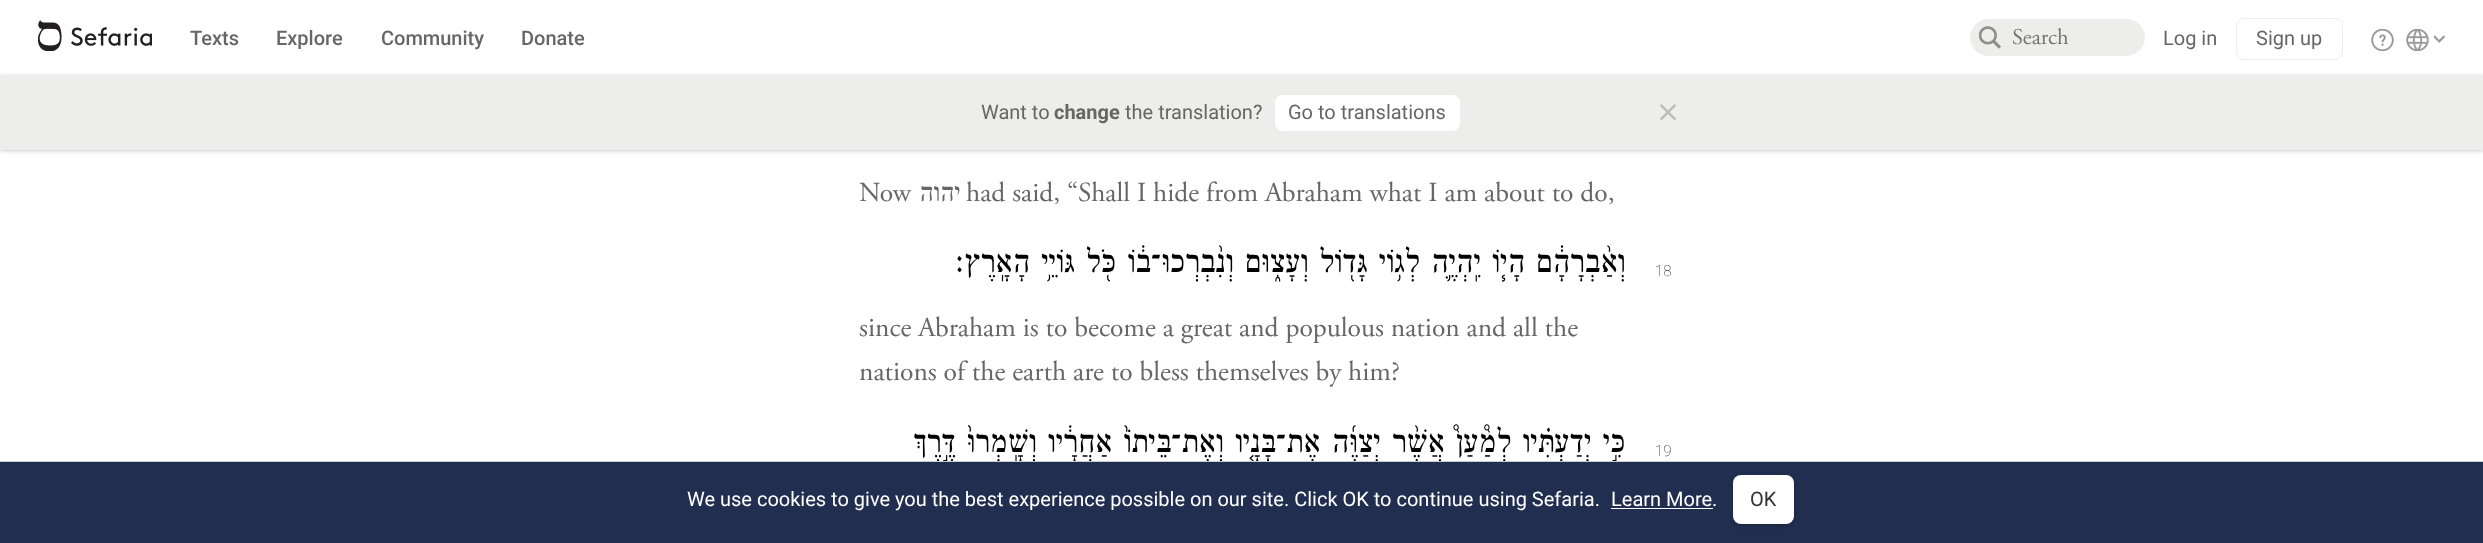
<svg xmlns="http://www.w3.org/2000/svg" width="2483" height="543">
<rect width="100%" height="100%" fill="#fff"/>
<image x="38" y="20" width="114" height="31" href="media/1.png"/>
<text x="190" y="45" style="font-family:Roboto;font-size:20px;font-weight:500;fill:#666">Texts</text>
<text x="276" y="45" style="font-family:Roboto;font-size:20px;font-weight:500;fill:#666">Explore</text>
<text x="381" y="45" style="font-family:Roboto;font-size:20px;font-weight:500;fill:#666">Community</text>
<text x="521" y="45" style="font-family:Roboto;font-size:20px;font-weight:500;fill:#666">Donate</text>
<rect x="1970" y="19" width="175" height="37" rx="18.5" fill="#ededec"/>
<image x="1979" y="26" width="22" height="23" href="media/2.png"/>
<text x="2012" y="44" style="font-family:Adobe Garamond;font-size:22.5px;fill:#757575">Search</text>
<text x="2163" y="45" style="font-family:Roboto;font-size:20px;fill:#666">Log in</text>
<rect x="2236.5" y="18.5" width="106" height="41" rx="7.5" fill="none" stroke="#ededec"/>
<text x="2256" y="45" style="font-family:Roboto;font-size:20px;fill:#666">Sign up</text>
<image x="2371" y="29" width="23" height="22" href="media/3.png"/>
<image x="2406" y="29" width="23" height="22" href="media/4.png"/>
<image x="2434" y="35" width="11" height="8" href="media/5.png"/>
<rect y="76" width="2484" height="75" fill="#00000033" filter="blur(2px)"/>
<rect y="75" width="2483" height="75" fill="#ededec"/>
<text x="981" y="119" style="font-family:Roboto;font-size:20px;fill:#666">Want to</text>
<text x="1054" y="119" style="font-family:Roboto;font-size:20px;font-weight:bold;fill:#666">change</text>
<text x="1125" y="119" style="font-family:Roboto;font-size:20px;fill:#666">the translation?</text>
<rect x="1275" y="95" width="185" height="36" rx="8" fill="#fff"/>
<text x="1288" y="119" style="font-family:Roboto;font-size:20px;fill:#666">Go to translations</text>
<text x="1657" y="121" style="font-family:Adobe Garamond;font-size:44px;fill:#bbb">×</text>
<text x="859" y="201" style="font-family:Adobe Garamond;font-size:27.5px;fill:#666">Now</text>
<text x="960" y="201" style="font-family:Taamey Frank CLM;font-size:27.5px;font-weight:500;direction:rtl;fill:#666">יהוה</text>
<text x="966" y="201" style="font-family:Adobe Garamond;font-size:27.5px;fill:#666">had said, “Shall I hide from Abraham what I am about to do,</text>
<text x="1625" y="272" style="font-family:Taamey Frank CLM;font-size:33.55px;font-weight:500;direction:rtl;fill:#000">וְאַ֨בְרָהָ֔ם הָי֧וֹ יִֽהְיֶ֛ה לְג֥וֹי גָּד֖וֹל וְעָצ֑וּם וְנִ֨בְרְכוּ־ב֔וֹ כֹּ֖ל גּוֹיֵ֥י הָאָֽרֶץ׃</text>
<text x="859" y="336" style="font-family:Adobe Garamond;font-size:27.5px;fill:#666">since Abraham is to become a great and populous nation and all the</text>
<text x="859" y="380" style="font-family:Adobe Garamond;font-size:27.5px;fill:#666">nations of the earth are to bless themselves by him?</text>
<text x="1655" y="276" style="font-family:Roboto;font-size:15px;font-weight:100;fill:#000">18</text>
<text x="1625" y="452" style="font-family:Taamey Frank CLM;font-size:33.55px;font-weight:500;direction:rtl;fill:#000">כִּ֣י יְדַעְתִּ֗יו לְמַ֩עַן֩ אֲשֶׁ֨ר יְצַוֶּ֜ה אֶת־בָּנָ֤יו וְאֶת־בֵּיתוֹ֙ אַחֲרָ֔יו וְשָֽׁמְרוּ֙ דֶּ֣רֶךְ</text>
<text x="1655" y="456" style="font-family:Roboto;font-size:15px;font-weight:100;fill:#000">19</text>
<rect y="462" width="2483" height="81" fill="#212e50"/>
<rect y="461" width="2483" height="1" fill="#ccc"/>
<text x="687" y="506" style="font-family:Roboto;font-size:20px;fill:#fff">We use cookies to give you the best experience possible on our site. Click OK to continue using Sefaria.</text>
<text x="1611" y="506" style="font-family:Roboto;font-size:20px;fill:#fff">Learn More.</text>
<rect x="1611" y="508" width="102" height="1" fill="#fff"/>
<rect x="1733" y="476" width="61" height="49" rx="8" fill="#00000040" filter="blur(2px)"/>
<rect x="1733" y="475" width="61" height="49" rx="8" fill="#fff"/>
<text x="1750" y="506" style="font-family:Roboto;font-size:20px;fill:#333">OK</text>
</svg>
